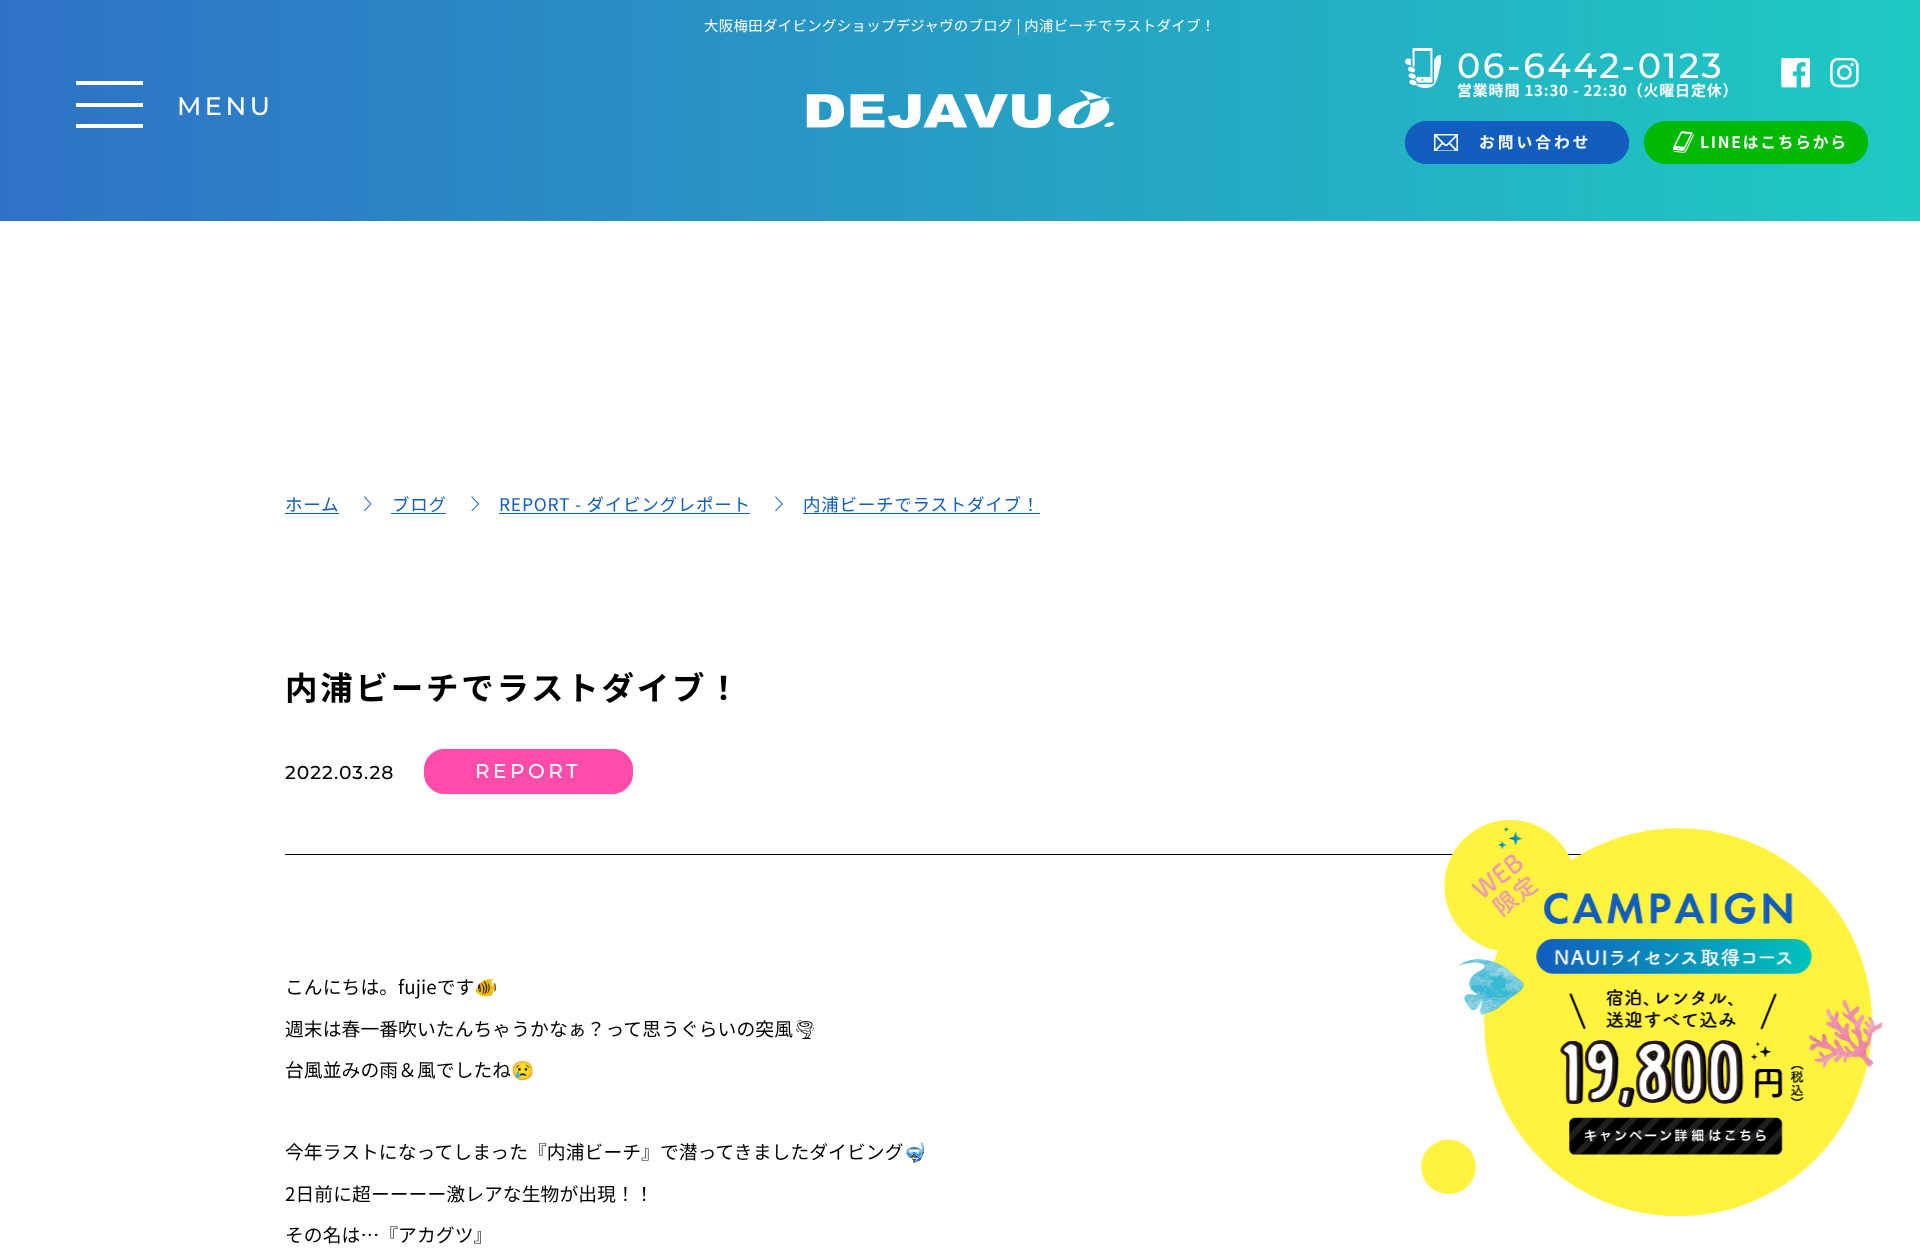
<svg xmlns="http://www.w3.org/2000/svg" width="1920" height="1253">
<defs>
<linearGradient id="g1" gradientUnits="userSpaceOnUse" x1="0" y1="111" x2="1920" y2="111"><stop offset="0" stop-color="#2f71c6"/><stop offset="1" stop-color="#1fcac3"/></linearGradient>
</defs>
<rect width="100%" height="100%" fill="#fff"/>
<rect width="1920" height="221" fill="url(#g1)"/>
<text x="704" y="31" style="font-family:Noto Sans JP;font-size:14.4px;letter-spacing:0.35px;fill:#fff">大阪梅田ダイビングショップデジャヴのブログ | 内浦ビーチでラストダイブ！</text>
<image x="806" y="90" width="308" height="38" href="media/1.png"/>
<rect x="76" y="103" width="67" height="4" fill="#fff"/>
<rect x="76" y="81" width="67" height="4" fill="#fff"/>
<rect x="76" y="124" width="67" height="4" fill="#fff"/>
<text x="177" y="115" style="font-family:Montserrat;font-size:25.5px;font-weight:100;letter-spacing:3.5px;fill:#fff">MENU</text>
<image x="1405" y="48" width="36" height="40" href="media/2.png"/>
<text x="1457" y="78" style="font-family:Montserrat;font-size:35px;font-weight:100;letter-spacing:2.5px;fill:#fff">06-6442-0123</text>
<text x="1457" y="96" style="font-family:Noto Sans JP;font-size:15px;font-weight:bold;letter-spacing:0.8px;fill:#fff">営業時間 13:30 - 22:30（火曜日定休）</text>
<image x="1781" y="58" width="29" height="30" href="media/3.png"/>
<image x="1830" y="58" width="29" height="30" href="media/4.png"/>
<rect x="1405" y="121" width="224" height="43" rx="21.5" fill="#125ebe"/>
<image x="1434" y="134" width="24" height="17" href="media/5.png"/>
<rect x="1405.5" y="121.5" width="223" height="42" rx="21" fill="none" stroke="#125ebe"/>
<text x="1479" y="148" style="font-family:Noto Sans JP;font-size:15.75px;font-weight:bold;letter-spacing:3px;fill:#fff">お問い合わせ</text>
<rect x="1644" y="121" width="224" height="43" rx="21.5" fill="#00b900"/>
<image x="1673" y="131" width="21" height="22" href="media/6.png"/>
<rect x="1644.5" y="121.5" width="223" height="42" rx="21" fill="none" stroke="#00b900"/>
<text x="1700" y="148" style="font-family:Noto Sans JP;font-size:15.75px;font-weight:bold;letter-spacing:1.75px;fill:#fff">LINEはこちらから</text>
<text x="285" y="511" style="font-family:Noto Sans JP;font-size:17.5px;letter-spacing:0.75px;fill:#125ebe">ホーム</text>
<rect x="285" y="513" width="54" height="1" fill="#125ebe"/>
<image x="364" y="496" width="7" height="15" href="media/7.png"/>
<text x="392" y="511" style="font-family:Noto Sans JP;font-size:17.5px;letter-spacing:0.75px;fill:#125ebe">ブログ</text>
<rect x="391" y="513" width="55" height="1" fill="#125ebe"/>
<image x="471" y="496" width="8" height="15" href="media/8.png"/>
<text x="499" y="511" style="font-family:Noto Sans JP;font-size:17.5px;letter-spacing:0.75px;fill:#125ebe">REPORT - ダイビングレポート</text>
<rect x="499" y="513" width="251" height="1" fill="#125ebe"/>
<image x="775" y="496" width="8" height="15" href="media/9.png"/>
<text x="803" y="511" style="font-family:Noto Sans JP;font-size:17.5px;letter-spacing:0.75px;fill:#125ebe">内浦ビーチでラストダイブ！</text>
<rect x="803" y="513" width="237" height="1" fill="#125ebe"/>
<rect x="285" y="854" width="1298" height="1" fill="#000"/>
<text x="285" y="700" style="font-family:Noto Sans JP;font-size:32.5px;font-weight:bold;letter-spacing:2.75px;fill:#000">内浦ビーチでラストダイブ！</text>
<text x="285" y="779" style="font-family:Montserrat;font-size:18.75px;font-weight:100;letter-spacing:1px;fill:#000">2022.03.28</text>
<rect x="424.5" y="749.5" width="208" height="44" rx="19.5" fill="#ff4caa" stroke="#ff4caa"/>
<text x="475" y="778" style="font-family:Montserrat;font-size:20px;font-weight:100;letter-spacing:3.5px;fill:#fff">REPORT</text>
<text x="285" y="994" style="font-family:Noto Sans JP;font-size:18.75px;letter-spacing:0.1px;fill:#000">こんにちは。fujieです</text>
<text x="474" y="994" style="font-family:Noto Color Emoji;font-size:18.75px;letter-spacing:0.1px;fill:#000">🐠</text>
<text x="285" y="1036" style="font-family:Noto Sans JP;font-size:18.75px;letter-spacing:0.1px;fill:#000">週末は春一番吹いたんちゃうかなぁ？って思うぐらいの突風</text>
<text x="793" y="1036" style="font-family:Noto Emoji;font-size:18.75px;letter-spacing:0.1px;fill:#000">🌪</text>
<text x="285" y="1077" style="font-family:Noto Sans JP;font-size:18.75px;letter-spacing:0.1px;fill:#000">台風並みの雨＆風でしたね</text>
<text x="511" y="1077" style="font-family:Noto Color Emoji;font-size:18.75px;letter-spacing:0.1px;fill:#000">😢</text>
<text x="285" y="1159" style="font-family:Noto Sans JP;font-size:18.75px;letter-spacing:0.1px;fill:#000">今年ラストになってしまった『内浦ビーチ』で潜ってきましたダイビング</text>
<text x="903" y="1159" style="font-family:Noto Color Emoji;font-size:18.75px;letter-spacing:0.1px;fill:#000">🤿</text>
<text x="285" y="1201" style="font-family:Noto Sans JP;font-size:18.75px;letter-spacing:0.1px;fill:#000">2日前に超ーーーー激レアな生物が出現！！</text>
<text x="285" y="1242" style="font-family:Noto Sans JP;font-size:18.75px;letter-spacing:0.1px;fill:#000">その名は…『アカグツ』</text>
<image x="1421" y="820" width="462" height="396" href="media/10.png"/>
</svg>
